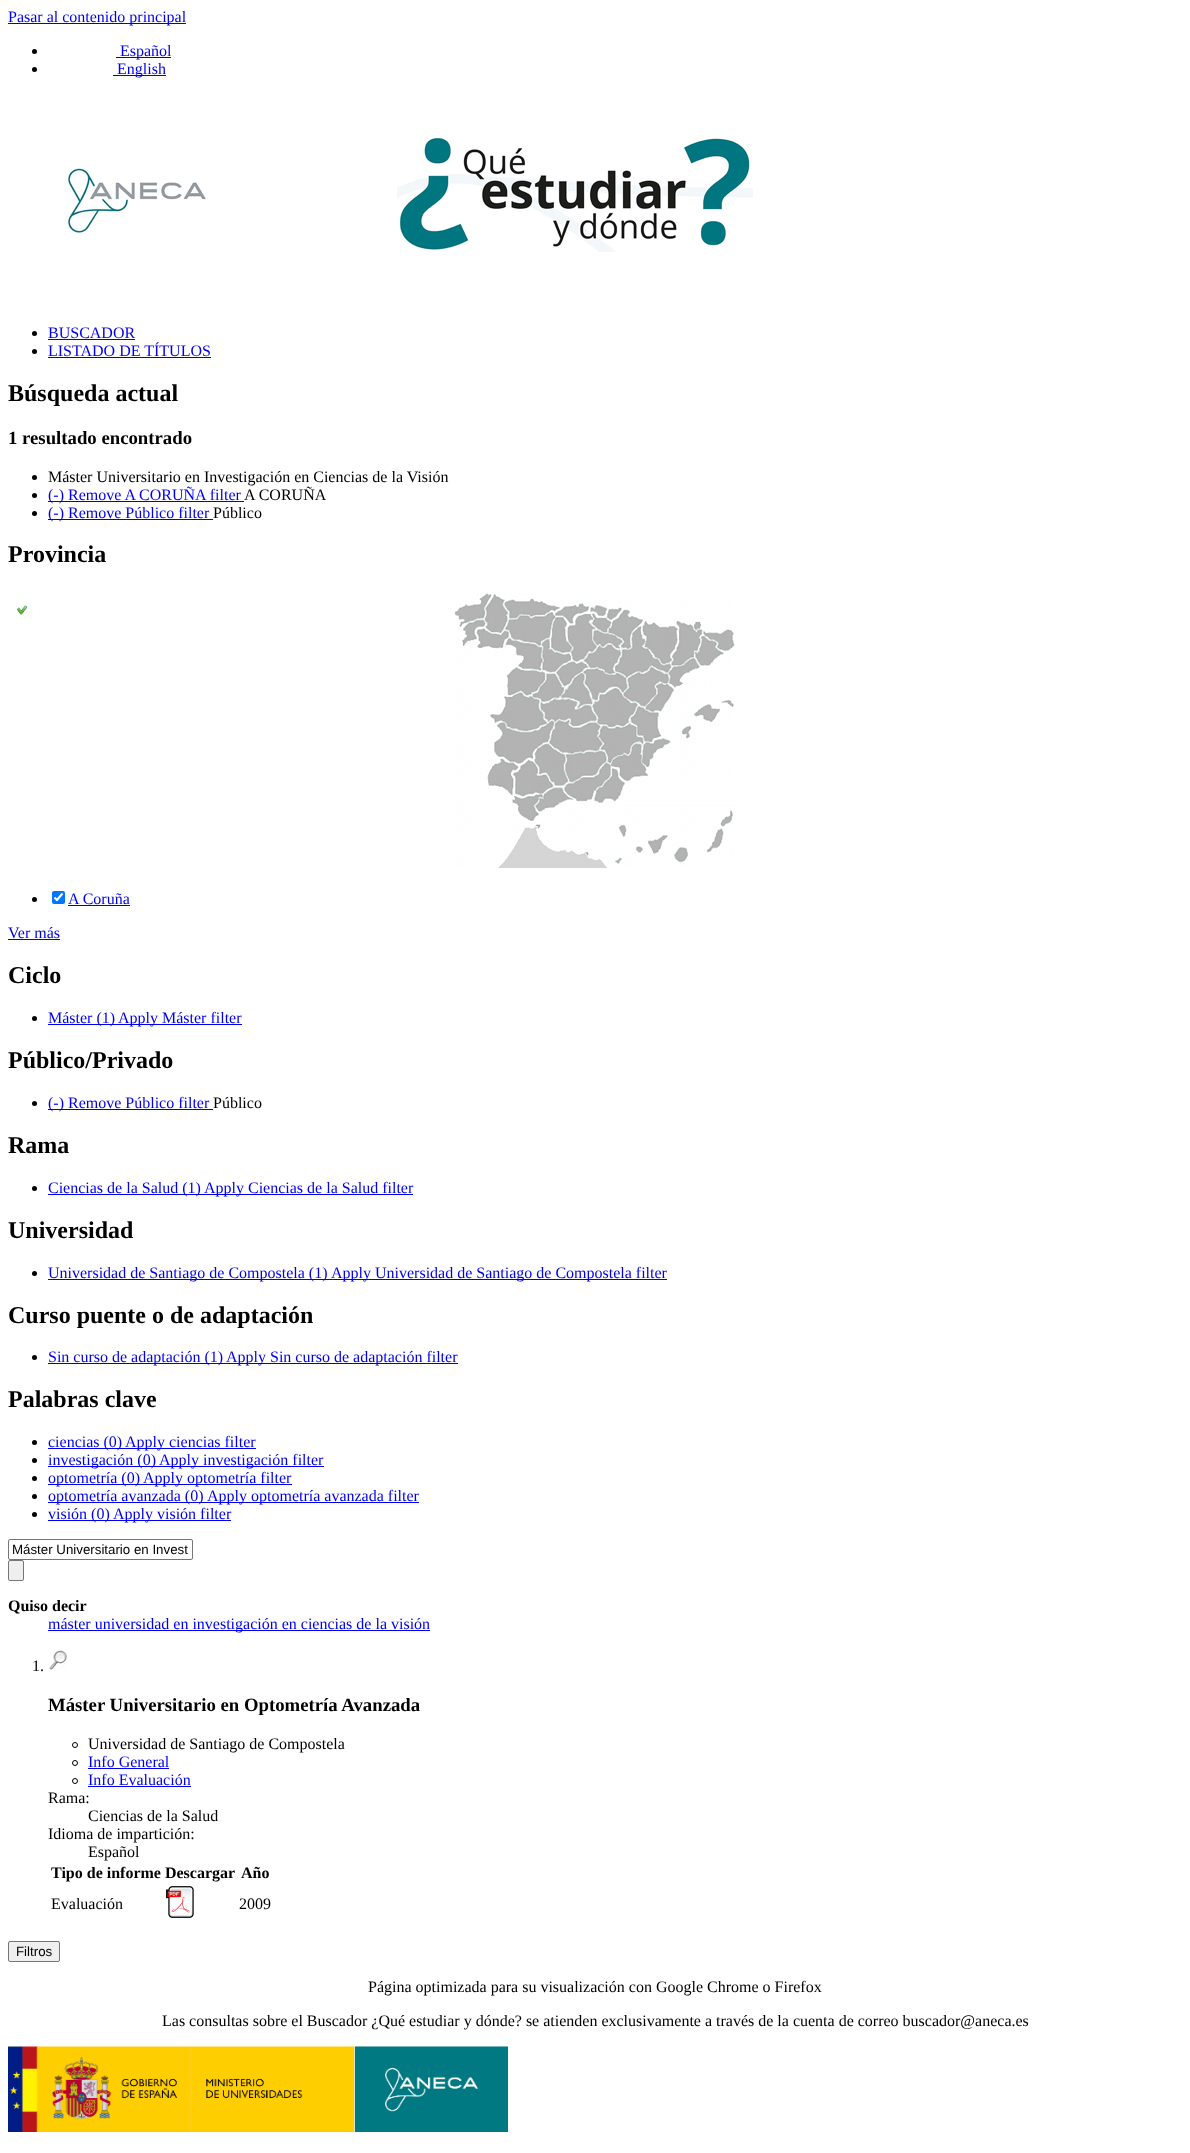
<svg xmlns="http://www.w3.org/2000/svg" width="1190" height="2153">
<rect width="100%" height="100%" fill="#fff"/>
<rect x="8" y="23" width="178" height="1" fill="#00e"/>
<text x="8" y="22" style="font-family:Liberation Serif;font-size:16px;fill:#00e">Pasar al contenido principal</text>
<circle cx="34.5" cy="51.5" r="2.5" fill="#000"/>
<rect x="116" y="57" width="55" height="1" fill="#00e"/>
<text x="120" y="56" style="font-family:Liberation Serif;font-size:16px;fill:#00e">Español</text>
<circle cx="34.5" cy="69.5" r="2.5" fill="#000"/>
<rect x="113" y="75" width="53" height="1" fill="#00e"/>
<text x="117" y="74" style="font-family:Liberation Serif;font-size:16px;fill:#00e">English</text>
<image x="68" y="138" width="685" height="114" href="media/1.png"/>
<circle cx="34.5" cy="333.5" r="2.5" fill="#000"/>
<text x="48" y="338" style="font-family:Liberation Serif;font-size:16px;fill:#00e">BUSCADOR</text>
<rect x="48" y="339" width="87" height="1" fill="#00e"/>
<circle cx="34.5" cy="351.5" r="2.5" fill="#000"/>
<text x="48" y="356" style="font-family:Liberation Serif;font-size:16px;fill:#00e">LISTADO DE TÍTULOS</text>
<rect x="48" y="357" width="163" height="1" fill="#00e"/>
<text x="8" y="401" style="font-family:Liberation Serif;font-size:24px;font-weight:bold;fill:#000">Búsqueda actual</text>
<text x="8" y="444" style="font-family:Liberation Serif;font-size:18.75px;font-weight:bold;fill:#000">1 resultado encontrado</text>
<circle cx="34.5" cy="477.5" r="2.5" fill="#000"/>
<text x="48" y="482" style="font-family:Liberation Serif;font-size:16px;fill:#000">Máster Universitario en Investigación en Ciencias de la Visión</text>
<circle cx="34.5" cy="495.5" r="2.5" fill="#000"/>
<rect x="48" y="501" width="196" height="1" fill="#00e"/>
<text x="48" y="500" style="font-family:Liberation Serif;font-size:16px;fill:#00e">(-)</text>
<text x="68" y="500" style="font-family:Liberation Serif;font-size:16px;fill:#00e">Remove A CORUÑA filter</text>
<text x="244" y="500" style="font-family:Liberation Serif;font-size:16px;fill:#000">A CORUÑA</text>
<circle cx="34.5" cy="513.5" r="2.5" fill="#000"/>
<rect x="48" y="519" width="165" height="1" fill="#00e"/>
<text x="48" y="518" style="font-family:Liberation Serif;font-size:16px;fill:#00e">(-) Remove Público filter</text>
<text x="213" y="518" style="font-family:Liberation Serif;font-size:16px;fill:#000">Público</text>
<text x="8" y="562" style="font-family:Liberation Serif;font-size:24px;font-weight:bold;fill:#000">Provincia</text>
<image x="17" y="605" width="10" height="10" href="media/2.png"/>
<image x="455" y="593" width="280" height="275" href="media/3.png"/>
<circle cx="34.5" cy="899.5" r="2.5" fill="#000"/>
<rect x="52" y="891" width="13" height="13" rx="2" fill="#0075ff"/>
<path d="M54.5 897.5l2.5 2.5l5.5-6.5" fill="none" stroke="#fff" stroke-width="2.1"/>
<text x="68" y="904" style="font-family:Liberation Serif;font-size:16px;fill:#00e">A Coruña</text>
<rect x="68" y="905" width="62" height="1" fill="#00e"/>
<text x="8" y="938" style="font-family:Liberation Serif;font-size:16px;fill:#00e">Ver más</text>
<rect x="8" y="939" width="52" height="1" fill="#00e"/>
<text x="8" y="983" style="font-family:Liberation Serif;font-size:24px;font-weight:bold;fill:#000">Ciclo</text>
<circle cx="34.5" cy="1018.5" r="2.5" fill="#000"/>
<rect x="48" y="1024" width="194" height="1" fill="#00e"/>
<text x="48" y="1023" style="font-family:Liberation Serif;font-size:16px;fill:#00e">Máster (1)</text>
<text x="118" y="1023" style="font-family:Liberation Serif;font-size:16px;fill:#00e">Apply Máster filter</text>
<text x="8" y="1068" style="font-family:Liberation Serif;font-size:24px;font-weight:bold;fill:#000">Público/Privado</text>
<circle cx="34.5" cy="1103.5" r="2.5" fill="#000"/>
<rect x="48" y="1109" width="165" height="1" fill="#00e"/>
<text x="48" y="1108" style="font-family:Liberation Serif;font-size:16px;fill:#00e">(-) Remove Público filter</text>
<text x="213" y="1108" style="font-family:Liberation Serif;font-size:16px;fill:#000">Público</text>
<text x="8" y="1153" style="font-family:Liberation Serif;font-size:24px;font-weight:bold;fill:#000">Rama</text>
<circle cx="34.5" cy="1188.5" r="2.5" fill="#000"/>
<rect x="48" y="1194" width="365" height="1" fill="#00e"/>
<text x="48" y="1193" style="font-family:Liberation Serif;font-size:16px;fill:#00e">Ciencias de la Salud (1)</text>
<text x="204" y="1193" style="font-family:Liberation Serif;font-size:16px;fill:#00e">Apply Ciencias de la Salud filter</text>
<text x="8" y="1238" style="font-family:Liberation Serif;font-size:24px;font-weight:bold;fill:#000">Universidad</text>
<circle cx="34.5" cy="1273.5" r="2.5" fill="#000"/>
<rect x="48" y="1279" width="619" height="1" fill="#00e"/>
<text x="48" y="1278" style="font-family:Liberation Serif;font-size:16px;fill:#00e">Universidad de Santiago de Compostela (1)</text>
<text x="331" y="1278" style="font-family:Liberation Serif;font-size:16px;fill:#00e">Apply Universidad de Santiago de Compostela filter</text>
<text x="8" y="1323" style="font-family:Liberation Serif;font-size:24px;font-weight:bold;fill:#000">Curso puente o de adaptación</text>
<circle cx="34.5" cy="1357.5" r="2.5" fill="#000"/>
<rect x="48" y="1363" width="410" height="1" fill="#00e"/>
<text x="48" y="1362" style="font-family:Liberation Serif;font-size:16px;fill:#00e">Sin curso de adaptación (1)</text>
<text x="226" y="1362" style="font-family:Liberation Serif;font-size:16px;fill:#00e">Apply Sin curso de adaptación filter</text>
<text x="8" y="1407" style="font-family:Liberation Serif;font-size:24px;font-weight:bold;fill:#000">Palabras clave</text>
<circle cx="34.5" cy="1442.5" r="2.5" fill="#000"/>
<rect x="48" y="1448" width="208" height="1" fill="#00e"/>
<text x="48" y="1447" style="font-family:Liberation Serif;font-size:16px;fill:#00e">ciencias (0)</text>
<text x="125" y="1447" style="font-family:Liberation Serif;font-size:16px;fill:#00e">Apply ciencias filter</text>
<circle cx="34.5" cy="1460.5" r="2.5" fill="#000"/>
<rect x="48" y="1466" width="276" height="1" fill="#00e"/>
<text x="48" y="1465" style="font-family:Liberation Serif;font-size:16px;fill:#00e">investigación (0)</text>
<text x="159" y="1465" style="font-family:Liberation Serif;font-size:16px;fill:#00e">Apply investigación filter</text>
<circle cx="34.5" cy="1478.5" r="2.5" fill="#000"/>
<rect x="48" y="1484" width="244" height="1" fill="#00e"/>
<text x="48" y="1483" style="font-family:Liberation Serif;font-size:16px;fill:#00e">optometría (0)</text>
<text x="143" y="1483" style="font-family:Liberation Serif;font-size:16px;fill:#00e">Apply optometría filter</text>
<circle cx="34.5" cy="1496.5" r="2.5" fill="#000"/>
<rect x="48" y="1502" width="371" height="1" fill="#00e"/>
<text x="48" y="1501" style="font-family:Liberation Serif;font-size:16px;fill:#00e">optometría avanzada (0)</text>
<text x="207" y="1501" style="font-family:Liberation Serif;font-size:16px;fill:#00e">Apply optometría avanzada filter</text>
<circle cx="34.5" cy="1514.5" r="2.5" fill="#000"/>
<rect x="48" y="1520" width="183" height="1" fill="#00e"/>
<text x="48" y="1519" style="font-family:Liberation Serif;font-size:16px;fill:#00e">visión (0)</text>
<text x="113" y="1519" style="font-family:Liberation Serif;font-size:16px;fill:#00e">Apply visión filter</text>
<rect x="8.5" y="1539.5" width="184" height="20" rx="1.5" fill="none" stroke="#767676"/>
<text x="12" y="1554" style="font-family:Liberation Sans;font-size:13.3px;fill:#000">Máster Universitario en Invest</text>
<rect x="8.5" y="1560.5" width="15" height="20" rx="1.5" fill="#efefef" stroke="#767676"/>
<text x="8" y="1611" style="font-family:Liberation Serif;font-size:16px;font-weight:bold;fill:#000">Quiso decir</text>
<rect x="48" y="1630" width="382" height="1" fill="#00e"/>
<text x="48" y="1629" style="font-family:Liberation Serif;font-size:16px;fill:#00e">máster universidad en investigación en ciencias de la visión</text>
<text x="32" y="1671" style="font-family:Liberation Serif;font-size:16px;fill:#000">1.</text>
<image x="49" y="1650" width="19" height="20" href="media/4.png"/>
<text x="48" y="1711" style="font-family:Liberation Serif;font-size:18.75px;font-weight:bold;fill:#000">Máster Universitario en Optometría Avanzada</text>
<circle cx="75" cy="1745" r="2.5" fill="none" stroke="#000"/>
<text x="88" y="1749" style="font-family:Liberation Serif;font-size:16px;fill:#000">Universidad de Santiago de Compostela</text>
<circle cx="75" cy="1763" r="2.5" fill="none" stroke="#000"/>
<text x="88" y="1767" style="font-family:Liberation Serif;font-size:16px;fill:#00e">Info General</text>
<rect x="88" y="1768" width="81" height="1" fill="#00e"/>
<circle cx="75" cy="1781" r="2.5" fill="none" stroke="#000"/>
<text x="88" y="1785" style="font-family:Liberation Serif;font-size:16px;fill:#00e">Info Evaluación</text>
<rect x="88" y="1786" width="103" height="1" fill="#00e"/>
<text x="48" y="1803" style="font-family:Liberation Serif;font-size:16px;fill:#000">Rama:</text>
<text x="88" y="1821" style="font-family:Liberation Serif;font-size:16px;fill:#000">Ciencias de la Salud</text>
<text x="48" y="1839" style="font-family:Liberation Serif;font-size:16px;fill:#000">Idioma de impartición:</text>
<text x="88" y="1857" style="font-family:Liberation Serif;font-size:16px;fill:#000">Español</text>
<text x="51" y="1878" style="font-family:Liberation Serif;font-size:16px;font-weight:bold;fill:#000">Tipo de informe Descargar</text>
<text x="241" y="1878" style="font-family:Liberation Serif;font-size:16px;font-weight:bold;fill:#000">Año</text>
<text x="51" y="1909" style="font-family:Liberation Serif;font-size:16px;fill:#000">Evaluación</text>
<image x="166" y="1886" width="28" height="32" href="media/5.png"/>
<text x="239" y="1909" style="font-family:Liberation Serif;font-size:16px;fill:#000">2009</text>
<rect x="8.5" y="1941.5" width="51" height="20" rx="1.5" fill="#efefef" stroke="#767676"/>
<text x="16" y="1956" style="font-family:Liberation Sans;font-size:13.3px;fill:#000">Filtros</text>
<text x="368" y="1992" style="font-family:Liberation Serif;font-size:16px;fill:#000">Página optimizada para su visualización con Google Chrome o Firefox</text>
<text x="162" y="2026" style="font-family:Liberation Serif;font-size:16px;fill:#000">Las consultas sobre el Buscador ¿Qué estudiar y dónde? se atienden exclusivamente a través de la cuenta de correo buscador@aneca.es</text>
<image x="8" y="2046" width="500" height="86" href="media/6.png"/>
</svg>
